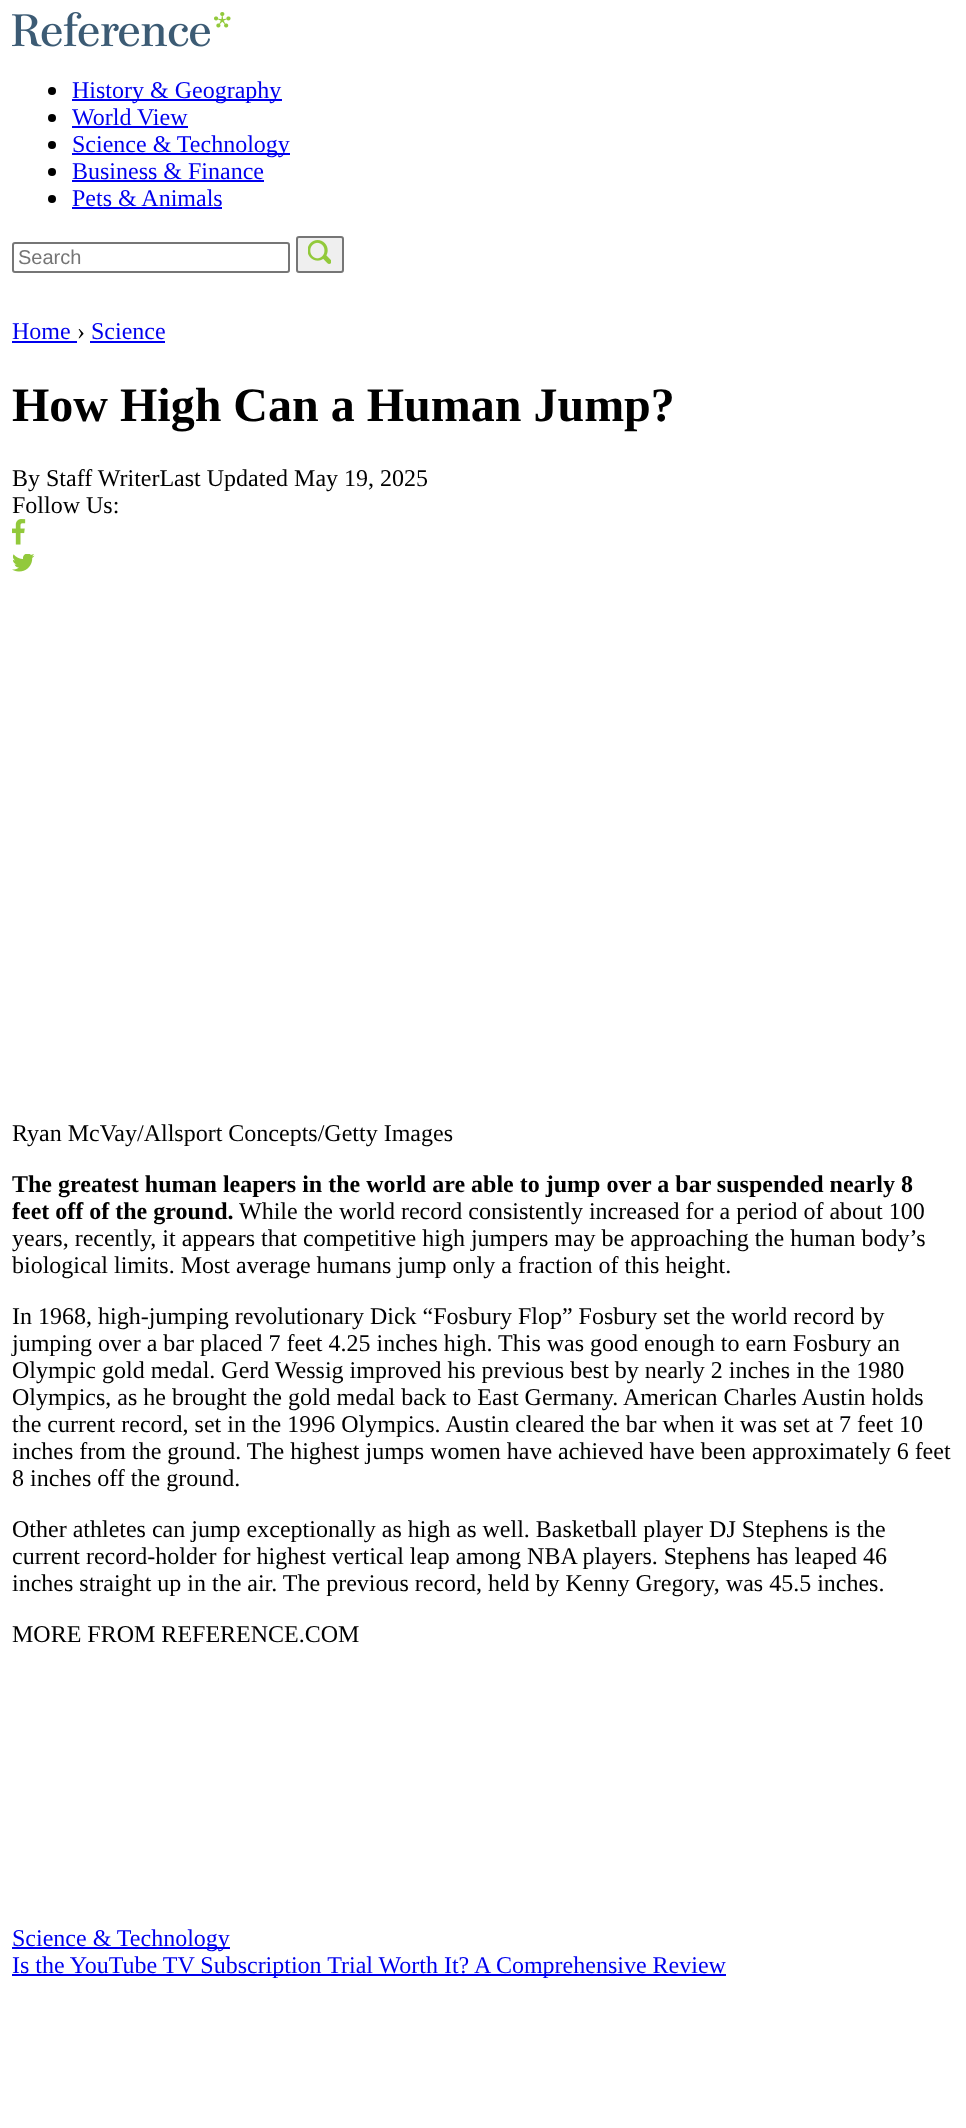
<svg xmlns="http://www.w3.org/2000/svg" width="966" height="2128">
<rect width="100%" height="100%" fill="#fff"/>
<image x="12" y="12" width="219" height="35" href="media/1.png"/>
<circle cx="52" cy="91" r="4" fill="#000"/>
<rect x="72" y="99" width="210" height="2" fill="#00e"/>
<text x="72" y="98" style="font-family:Liberation Serif;font-size:24px;fill:#00e">History &amp; Geography</text>
<circle cx="52" cy="118" r="4" fill="#000"/>
<text x="72" y="125" style="font-family:Liberation Serif;font-size:24px;fill:#00e">World View</text>
<rect x="72" y="126" width="116" height="2" fill="#00e"/>
<circle cx="52" cy="145" r="4" fill="#000"/>
<rect x="72" y="153" width="218" height="2" fill="#00e"/>
<text x="72" y="152" style="font-family:Liberation Serif;font-size:24px;fill:#00e">Science &amp; Technology</text>
<circle cx="52" cy="172" r="4" fill="#000"/>
<text x="72" y="179" style="font-family:Liberation Serif;font-size:24px;fill:#00e">Business &amp; Finance</text>
<rect x="72" y="180" width="192" height="2" fill="#00e"/>
<circle cx="52" cy="199" r="4" fill="#000"/>
<text x="72" y="206" style="font-family:Liberation Serif;font-size:24px;fill:#00e">Pets &amp; Animals</text>
<rect x="72" y="207" width="150" height="2" fill="#00e"/>
<rect x="13" y="243" width="276" height="29" rx="2" fill="none" stroke="#767676" stroke-width="2"/>
<text x="18" y="264" style="font-family:Liberation Sans;font-size:20px;fill:#757575">Search</text>
<rect x="297" y="237" width="46" height="35" rx="2" fill="#efefef" stroke="#767676" stroke-width="2"/>
<image x="308" y="240" width="23" height="24" href="media/2.png"/>
<text x="12" y="339" style="font-family:Liberation Serif;font-size:24px;fill:#00e">Home</text>
<text x="77" y="339" style="font-family:Liberation Serif;font-size:24px;fill:#000">›</text>
<rect x="12" y="341" width="65" height="2" fill="#00e"/>
<text x="91" y="339" style="font-family:Liberation Serif;font-size:24px;fill:#00e">Science</text>
<rect x="90" y="341" width="75" height="2" fill="#00e"/>
<text x="12" y="421" style="font-family:Liberation Serif;font-size:48px;font-weight:bold;fill:#000">How High Can a Human Jump?</text>
<text x="12" y="486" style="font-family:Liberation Serif;font-size:24px;fill:#000">By Staff WriterLast Updated May 19, 2025</text>
<text x="12" y="513" style="font-family:Liberation Serif;font-size:24px;fill:#000">Follow Us:</text>
<image x="12" y="519" width="14" height="26" href="media/3.png"/>
<image x="12" y="554" width="23" height="18" href="media/4.png"/>
<text x="12" y="1141" style="font-family:Liberation Serif;font-size:24px;fill:#000">Ryan McVay/Allsport Concepts/Getty Images</text>
<text x="12" y="1192" style="font-family:Liberation Serif;font-size:24px;font-weight:bold;fill:#000">The greatest human leapers in the world are able to jump over a bar suspended nearly 8</text>
<text x="12" y="1219" style="font-family:Liberation Serif;font-size:24px;font-weight:bold;fill:#000">feet off of the ground.</text>
<text x="239" y="1219" style="font-family:Liberation Serif;font-size:24px;fill:#000">While the world record consistently increased for a period of about 100</text>
<text x="12" y="1246" style="font-family:Liberation Serif;font-size:24px;fill:#000">years, recently, it appears that competitive high jumpers may be approaching the human body’s</text>
<text x="12" y="1273" style="font-family:Liberation Serif;font-size:24px;fill:#000">biological limits. Most average humans jump only a fraction of this height.</text>
<text x="12" y="1324" style="font-family:Liberation Serif;font-size:24px;fill:#000">In 1968, high-jumping revolutionary Dick “Fosbury Flop” Fosbury set the world record by</text>
<text x="12" y="1351" style="font-family:Liberation Serif;font-size:24px;fill:#000">jumping over a bar placed 7 feet 4.25 inches high. This was good enough to earn Fosbury an</text>
<text x="12" y="1378" style="font-family:Liberation Serif;font-size:24px;fill:#000">Olympic gold medal. Gerd Wessig improved his previous best by nearly 2 inches in the 1980</text>
<text x="12" y="1405" style="font-family:Liberation Serif;font-size:24px;fill:#000">Olympics, as he brought the gold medal back to East Germany. American Charles Austin holds</text>
<text x="12" y="1432" style="font-family:Liberation Serif;font-size:24px;fill:#000">the current record, set in the 1996 Olympics. Austin cleared the bar when it was set at 7 feet 10</text>
<text x="12" y="1459" style="font-family:Liberation Serif;font-size:24px;fill:#000">inches from the ground. The highest jumps women have achieved have been approximately 6 feet</text>
<text x="12" y="1486" style="font-family:Liberation Serif;font-size:24px;fill:#000">8 inches off the ground.</text>
<text x="12" y="1537" style="font-family:Liberation Serif;font-size:24px;fill:#000">Other athletes can jump exceptionally as high as well. Basketball player DJ Stephens is the</text>
<text x="12" y="1564" style="font-family:Liberation Serif;font-size:24px;fill:#000">current record-holder for highest vertical leap among NBA players. Stephens has leaped 46</text>
<text x="12" y="1591" style="font-family:Liberation Serif;font-size:24px;fill:#000">inches straight up in the air. The previous record, held by Kenny Gregory, was 45.5 inches.</text>
<text x="12" y="1642" style="font-family:Liberation Serif;font-size:24px;fill:#000">MORE FROM REFERENCE.COM</text>
<rect x="12" y="1947" width="218" height="2" fill="#00e"/>
<text x="12" y="1946" style="font-family:Liberation Serif;font-size:24px;fill:#00e">Science &amp; Technology</text>
<rect x="12" y="1974" width="714" height="2" fill="#00e"/>
<text x="12" y="1973" style="font-family:Liberation Serif;font-size:24px;fill:#00e">Is the YouTube TV Subscription Trial Worth It? A Comprehensive Review</text>
</svg>
